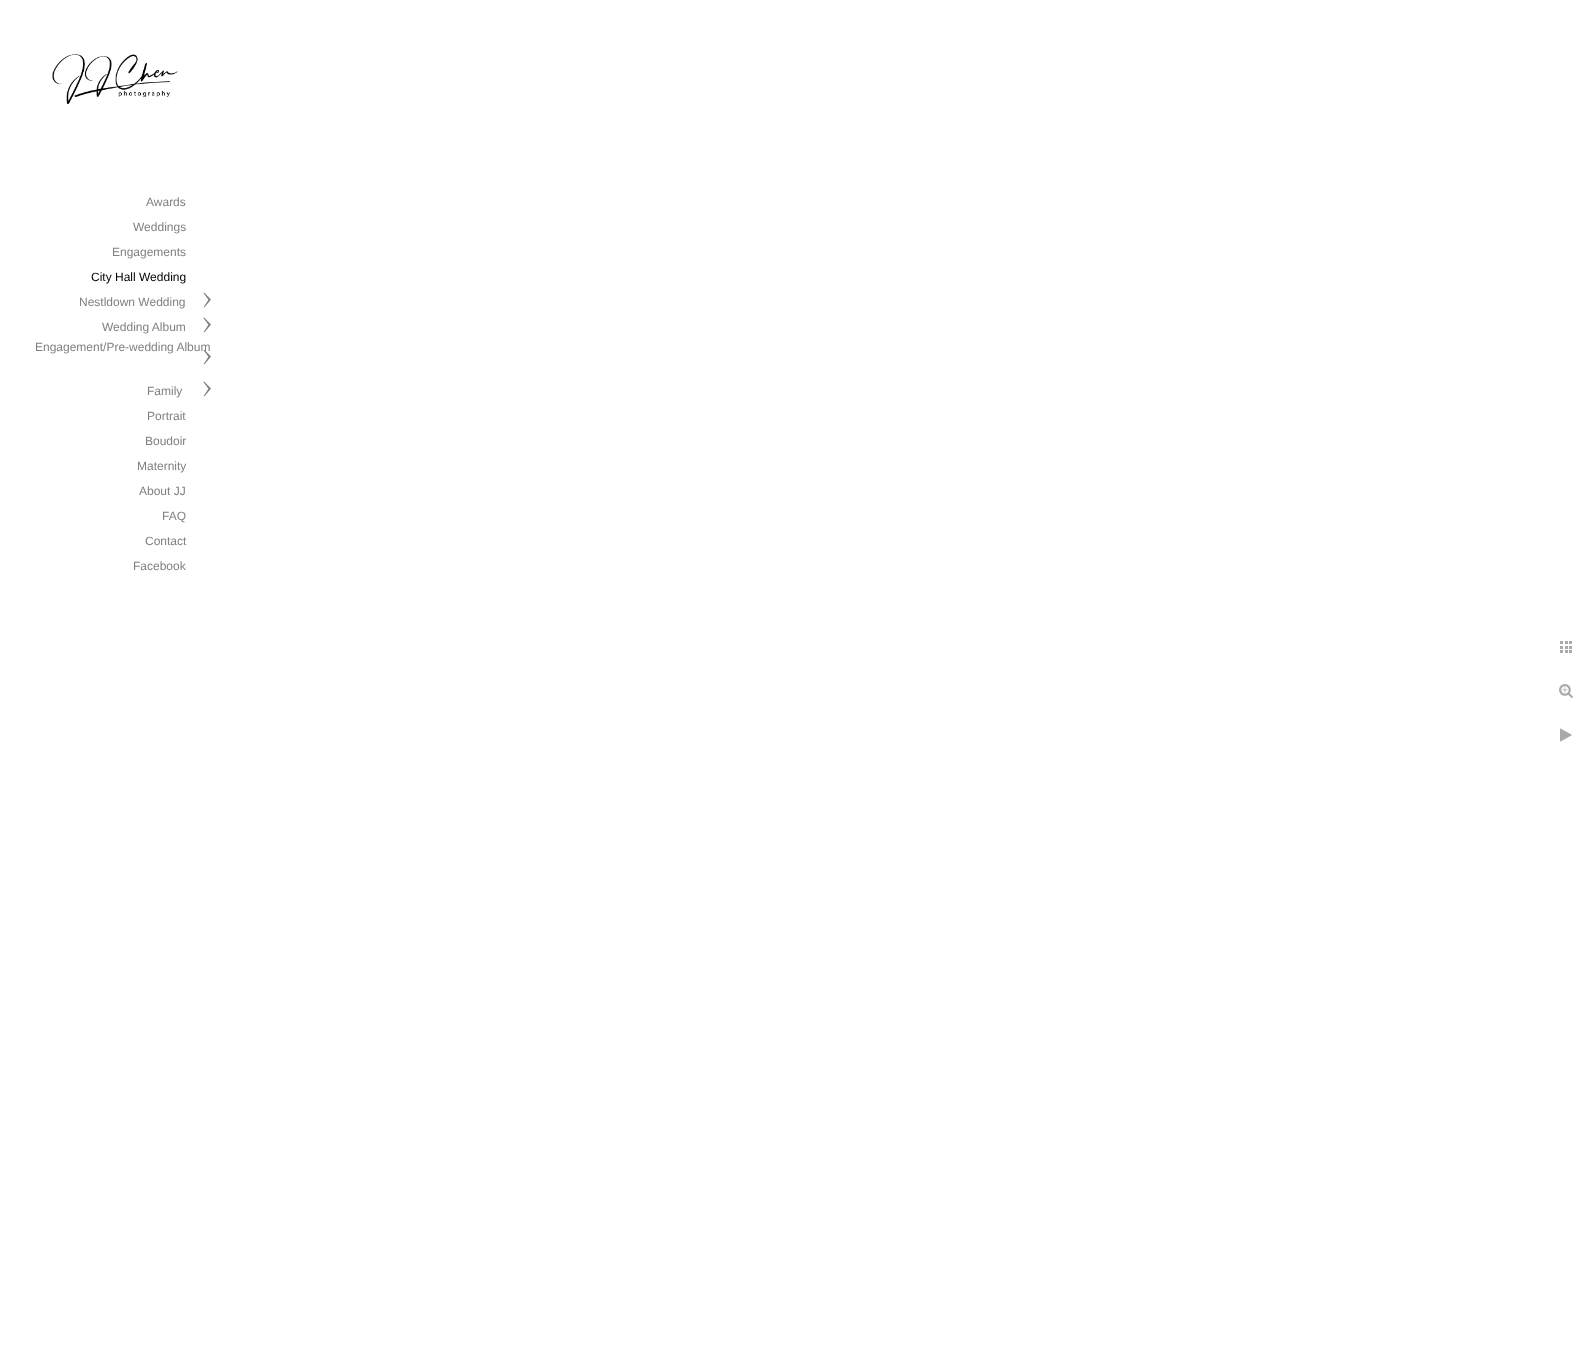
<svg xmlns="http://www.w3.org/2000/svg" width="1593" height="1362">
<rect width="100%" height="100%" fill="#fff"/>
<image x="52" y="54" width="126" height="50" href="media/1.png"/>
<text x="146" y="206" style="font-family:Liberation Sans;font-size:12px;fill:#808080">Awards</text>
<text x="133" y="231" style="font-family:Liberation Sans;font-size:12px;fill:#808080">Weddings</text>
<text x="112" y="256" style="font-family:Liberation Sans;font-size:12px;fill:#808080">Engagements</text>
<text x="91" y="281" style="font-family:Liberation Sans;font-size:12px;fill:#000">City Hall Wedding</text>
<text x="79" y="306" style="font-family:Liberation Sans;font-size:12px;fill:#808080">Nestldown Wedding</text>
<image x="203" y="292" width="8" height="16" href="media/2.png"/>
<text x="102" y="331" style="font-family:Liberation Sans;font-size:12px;fill:#808080">Wedding Album</text>
<image x="203" y="317" width="8" height="16" href="media/2.png"/>
<text x="35" y="351" style="font-family:Liberation Sans;font-size:12px;fill:#808080">Engagement/Pre-wedding Album</text>
<image x="203" y="349" width="8" height="16" href="media/3.png"/>
<text x="147" y="395" style="font-family:Liberation Sans;font-size:12px;fill:#808080">Family</text>
<image x="203" y="381" width="8" height="16" href="media/2.png"/>
<text x="147" y="420" style="font-family:Liberation Sans;font-size:12px;fill:#808080">Portrait</text>
<text x="145" y="445" style="font-family:Liberation Sans;font-size:12px;fill:#808080">Boudoir</text>
<text x="137" y="470" style="font-family:Liberation Sans;font-size:12px;fill:#808080">Maternity</text>
<text x="139" y="495" style="font-family:Liberation Sans;font-size:12px;fill:#808080">About JJ</text>
<text x="162" y="520" style="font-family:Liberation Sans;font-size:12px;fill:#808080">FAQ</text>
<text x="145" y="545" style="font-family:Liberation Sans;font-size:12px;fill:#808080">Contact</text>
<text x="133" y="570" style="font-family:Liberation Sans;font-size:12px;fill:#808080">Facebook</text>
<image x="1560" y="641" width="12" height="12" href="media/4.png"/>
<image x="1559" y="684" width="14" height="14" href="media/5.png"/>
<image x="1560" y="728" width="12" height="14" href="media/6.png"/>
</svg>
